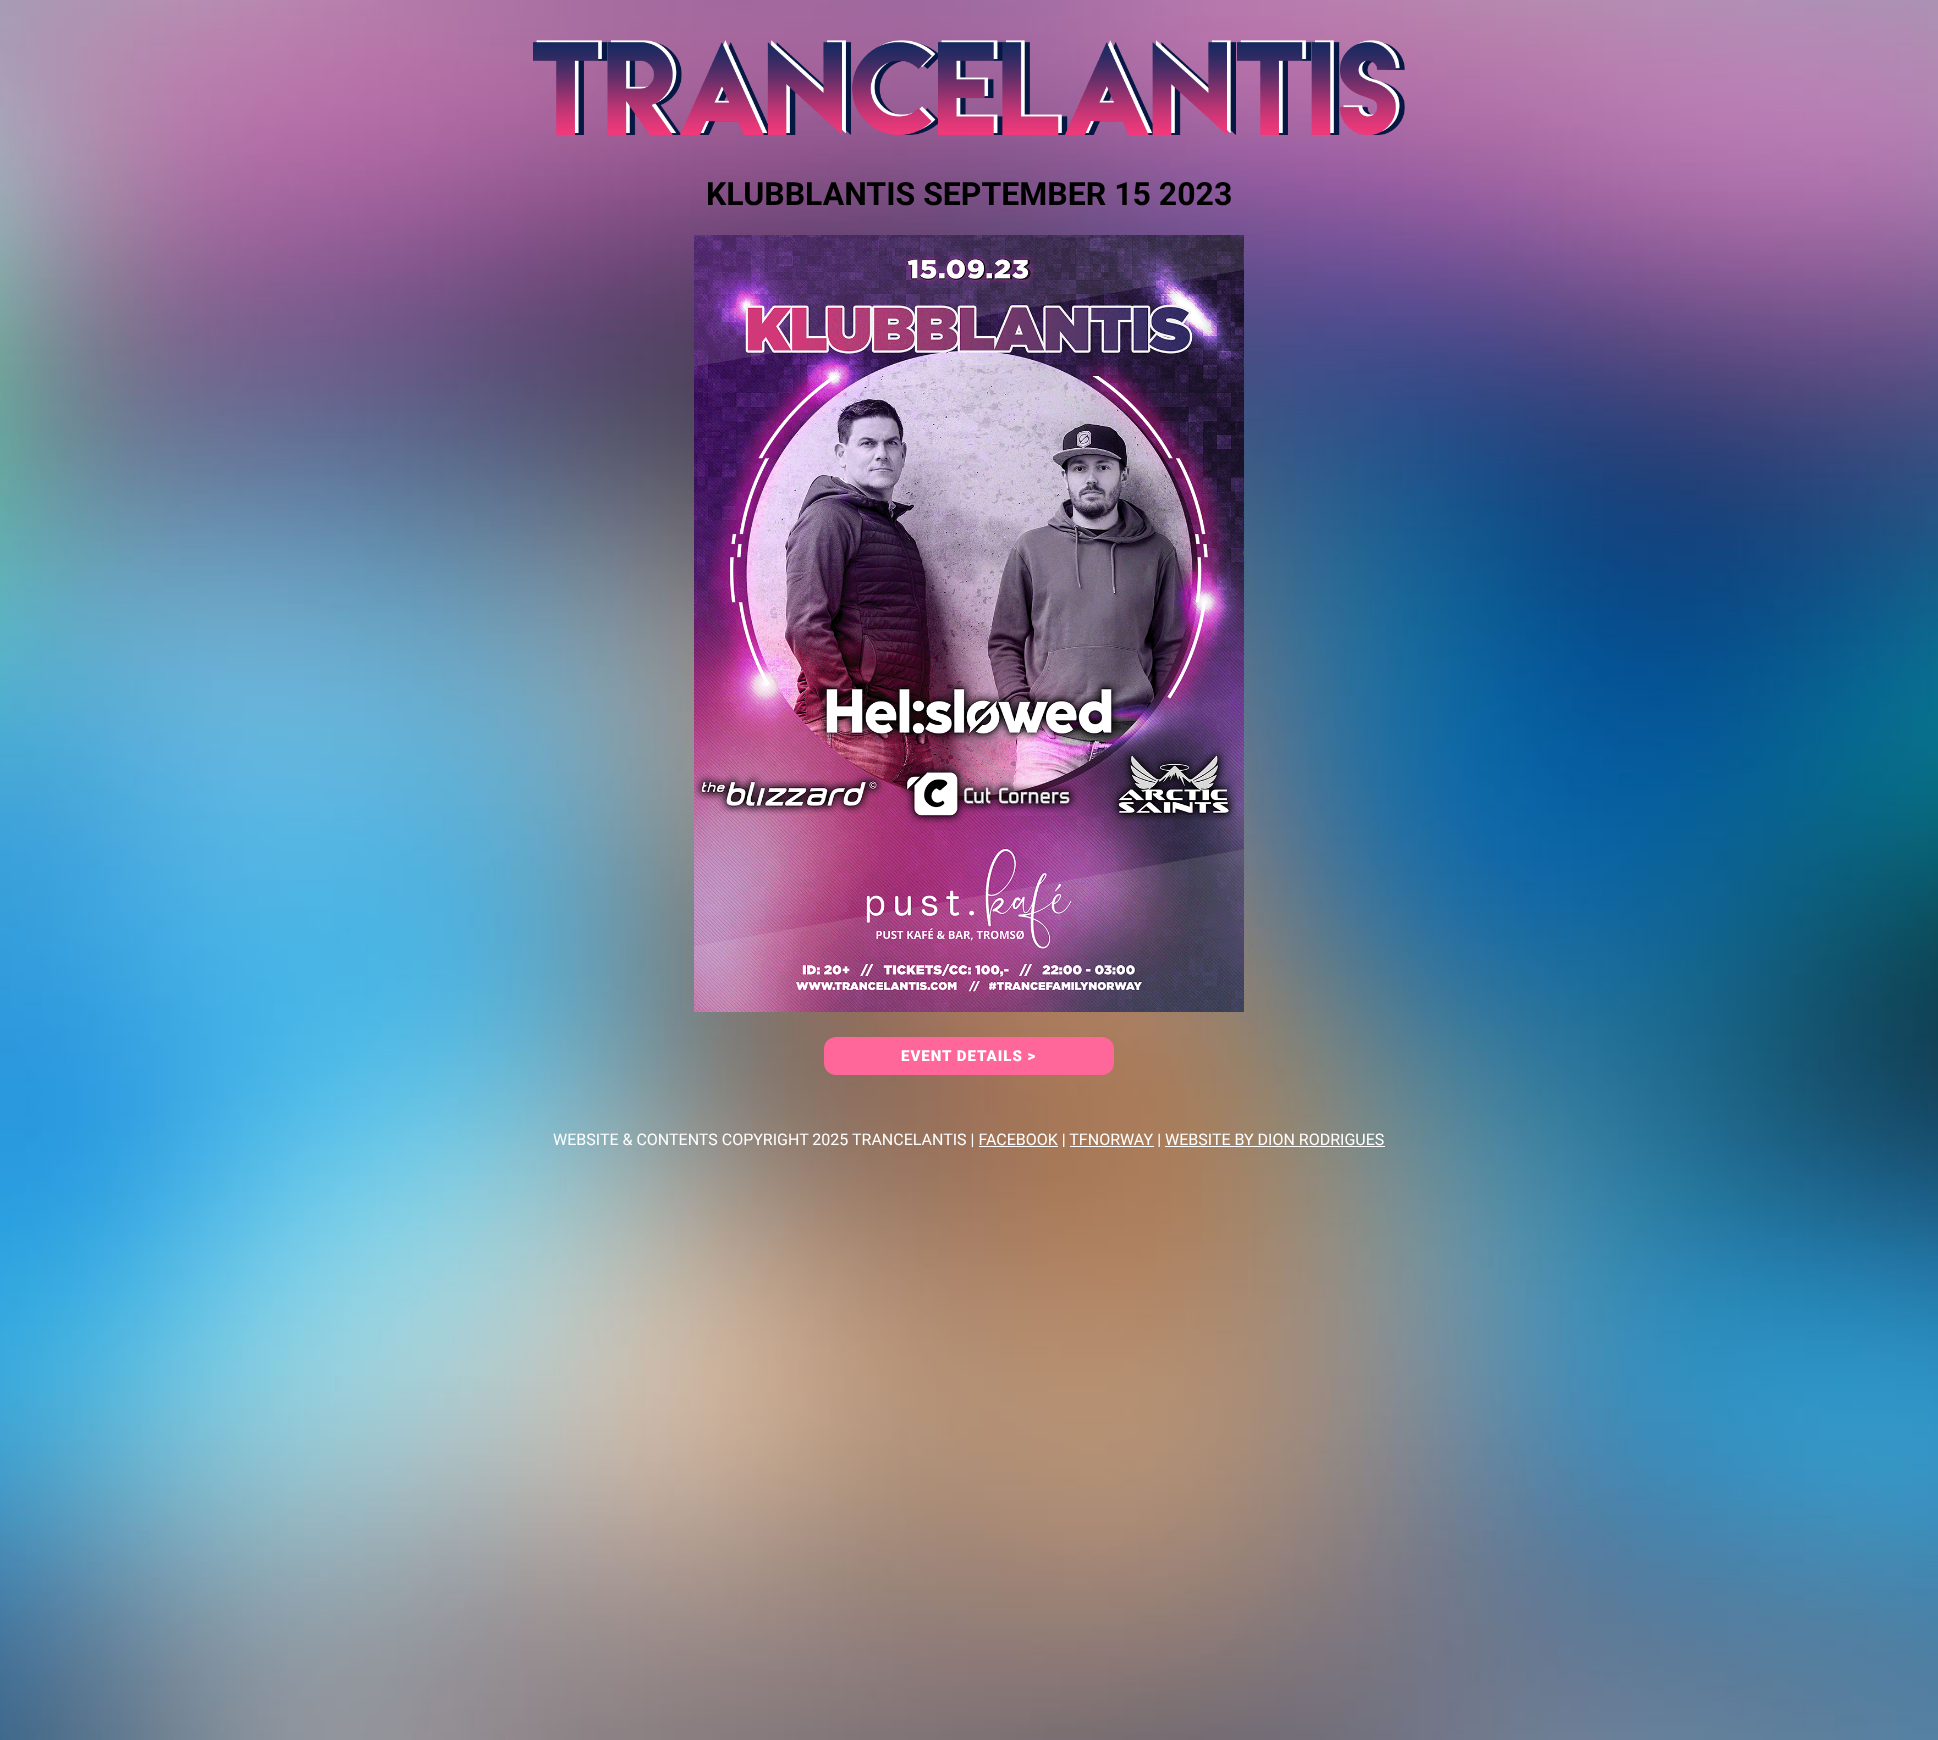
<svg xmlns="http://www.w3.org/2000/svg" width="1938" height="1740">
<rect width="100%" height="100%" fill="#fff"/>
<image x="0" y="0" width="1938" height="1740" href="media/1.png"/>
<image x="533" y="40" width="872" height="95" href="media/2.png"/>
<text x="706" y="205" style="font-family:Roboto;font-size:32px;font-weight:bold;fill:#000">KLUBBLANTIS SEPTEMBER 15 2023</text>
<image x="694" y="235" width="550" height="777" href="media/3.png"/>
<rect x="824" y="1037" width="290" height="38" rx="12" fill="#f69"/>
<text x="901" y="1061" style="font-family:Roboto;font-size:15px;font-weight:900;letter-spacing:1px;fill:#fff">EVENT DETAILS &gt;</text>
<text x="553" y="1145" style="font-family:Roboto;font-size:16px;fill:#fff">WEBSITE &amp; CONTENTS COPYRIGHT 2025 TRANCELANTIS | FACEBOOK | TFNORWAY | WEBSITE BY DION RODRIGUES</text>
<rect x="979" y="1146" width="79" height="1" fill="#fff"/>
<rect x="1070" y="1146" width="84" height="1" fill="#fff"/>
<rect x="1165" y="1146" width="220" height="1" fill="#fff"/>
</svg>
